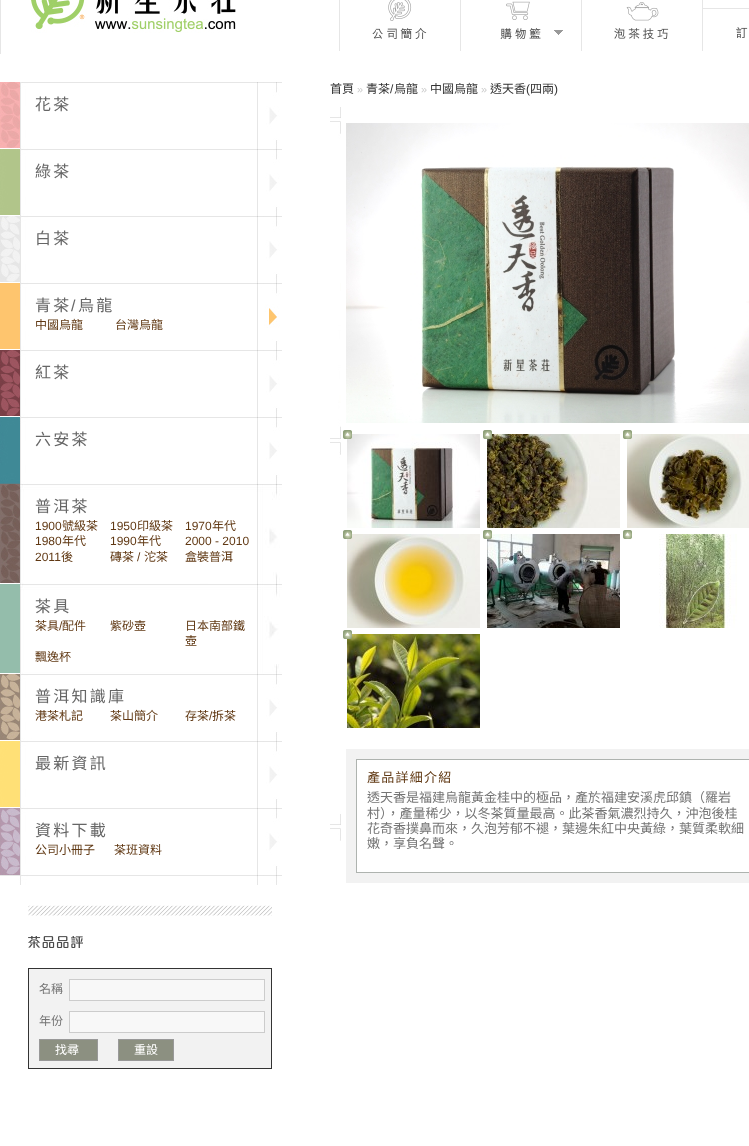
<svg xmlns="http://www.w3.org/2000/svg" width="749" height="1146">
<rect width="100%" height="100%" fill="#fff"/>
<rect width="1" height="54" fill="#e6e6e6"/>
<image x="31" y="0" width="205" height="33" href="media/1.png"/>
<rect x="339" width="1" height="51" fill="#e6e6e6"/>
<image x="372" y="0" width="55" height="39" href="media/2.png"/>
<rect x="460" width="1" height="51" fill="#e6e6e6"/>
<image x="500" y="1" width="41" height="38" href="media/3.png"/>
<image x="554" y="30" width="9" height="5" href="media/4.png"/>
<rect x="581" width="1" height="51" fill="#e6e6e6"/>
<image x="614" y="2" width="55" height="37" href="media/5.png"/>
<rect x="702" width="1" height="51" fill="#e6e6e6"/>
<rect x="703" y="8" width="46" height="1" fill="#e6e6e6"/>
<image x="736" y="27" width="12" height="11" href="media/6.png"/>
<image x="0" y="82" width="282" height="67" href="media/7.png"/>
<image x="0" y="82" width="20" height="66" href="media/8.png"/>
<text x="35" y="110" style="font-family:Noto Sans CJK HK;font-size:16px;letter-spacing:2.25px;fill:#666">花茶</text>
<image x="0" y="149" width="282" height="67" href="media/7.png"/>
<image x="0" y="149" width="20" height="66" href="media/9.png"/>
<text x="35" y="177" style="font-family:Noto Sans CJK HK;font-size:16px;letter-spacing:2.25px;fill:#666">綠茶</text>
<image x="0" y="216" width="282" height="67" href="media/7.png"/>
<image x="0" y="216" width="20" height="66" href="media/10.png"/>
<text x="35" y="244" style="font-family:Noto Sans CJK HK;font-size:16px;letter-spacing:2.25px;fill:#666">白茶</text>
<image x="0" y="283" width="282" height="67" href="media/11.png"/>
<rect y="283" width="20" height="66" fill="#fec56e"/>
<text x="35" y="311" style="font-family:Noto Sans CJK HK;font-size:16px;letter-spacing:2.25px;fill:#666">青茶</text>
<text x="71" y="311" style="font-family:Liberation Sans;font-size:16px;letter-spacing:2.25px;fill:#666">/</text>
<text x="78" y="311" style="font-family:Noto Sans CJK HK;font-size:16px;letter-spacing:2.25px;fill:#666">烏龍</text>
<text x="35" y="329" style="font-family:Noto Sans CJK HK;font-size:12px;fill:#603813">中國烏龍</text>
<text x="115" y="329" style="font-family:Noto Sans CJK HK;font-size:12px;fill:#603813">台灣烏龍</text>
<image x="0" y="350" width="282" height="67" href="media/7.png"/>
<image x="0" y="350" width="20" height="66" href="media/12.png"/>
<text x="35" y="378" style="font-family:Noto Sans CJK HK;font-size:16px;letter-spacing:2.25px;fill:#666">紅茶</text>
<image x="20" y="417" width="262" height="67" href="media/13.png"/>
<image x="0" y="417" width="20" height="67" href="media/14.png"/>
<text x="35" y="445" style="font-family:Noto Sans CJK HK;font-size:16px;letter-spacing:2.25px;fill:#666">六安茶</text>
<image x="0" y="484" width="282" height="100" href="media/15.png"/>
<image x="0" y="484" width="20" height="99" href="media/16.png"/>
<text x="35" y="512" style="font-family:Noto Sans CJK HK;font-size:16px;letter-spacing:2.25px;fill:#666">普洱茶</text>
<text x="35" y="530" style="font-family:Liberation Sans;font-size:12px;fill:#603813">1900</text>
<text x="62" y="530" style="font-family:Noto Sans CJK HK;font-size:12px;fill:#603813">號級茶</text>
<text x="110" y="530" style="font-family:Liberation Sans;font-size:12px;fill:#603813">1950</text>
<text x="137" y="530" style="font-family:Noto Sans CJK HK;font-size:12px;fill:#603813">印級茶</text>
<text x="185" y="530" style="font-family:Liberation Sans;font-size:12px;fill:#603813">1970</text>
<text x="212" y="530" style="font-family:Noto Sans CJK HK;font-size:12px;fill:#603813">年代</text>
<text x="35" y="545" style="font-family:Liberation Sans;font-size:12px;fill:#603813">1980</text>
<text x="62" y="545" style="font-family:Noto Sans CJK HK;font-size:12px;fill:#603813">年代</text>
<text x="110" y="545" style="font-family:Liberation Sans;font-size:12px;fill:#603813">1990</text>
<text x="137" y="545" style="font-family:Noto Sans CJK HK;font-size:12px;fill:#603813">年代</text>
<text x="185" y="545" style="font-family:Liberation Sans;font-size:12px;fill:#603813">2000 - 2010</text>
<text x="35" y="561" style="font-family:Liberation Sans;font-size:12px;fill:#603813">2011</text>
<text x="61" y="561" style="font-family:Noto Sans CJK HK;font-size:12px;fill:#603813">後</text>
<text x="110" y="561" style="font-family:Noto Sans CJK HK;font-size:12px;fill:#603813">磚茶</text>
<text x="137" y="561" style="font-family:Liberation Sans;font-size:12px;fill:#603813">/</text>
<text x="144" y="561" style="font-family:Noto Sans CJK HK;font-size:12px;fill:#603813">沱茶</text>
<text x="185" y="561" style="font-family:Noto Sans CJK HK;font-size:12px;fill:#603813">盒裝普洱</text>
<image x="0" y="584" width="282" height="90" href="media/17.png"/>
<rect y="584" width="20" height="89" fill="#94bdab"/>
<text x="35" y="612" style="font-family:Noto Sans CJK HK;font-size:16px;letter-spacing:2.25px;fill:#666">茶具</text>
<text x="35" y="630" style="font-family:Noto Sans CJK HK;font-size:12px;fill:#603813">茶具</text>
<text x="59" y="630" style="font-family:Liberation Sans;font-size:12px;fill:#603813">/</text>
<text x="62" y="630" style="font-family:Noto Sans CJK HK;font-size:12px;fill:#603813">配件</text>
<text x="110" y="630" style="font-family:Noto Sans CJK HK;font-size:12px;fill:#603813">紫砂壺</text>
<text x="185" y="630" style="font-family:Noto Sans CJK HK;font-size:12px;fill:#603813">日本南部鐵</text>
<text x="185" y="645" style="font-family:Noto Sans CJK HK;font-size:12px;fill:#603813">壺</text>
<text x="35" y="661" style="font-family:Noto Sans CJK HK;font-size:12px;fill:#603813">飄逸杯</text>
<image x="0" y="674" width="282" height="67" href="media/7.png"/>
<image x="0" y="674" width="20" height="66" href="media/18.png"/>
<text x="35" y="702" style="font-family:Noto Sans CJK HK;font-size:16px;letter-spacing:2.25px;fill:#666">普洱知識庫</text>
<text x="35" y="720" style="font-family:Noto Sans CJK HK;font-size:12px;fill:#603813">港茶札記</text>
<text x="110" y="720" style="font-family:Noto Sans CJK HK;font-size:12px;fill:#603813">茶山簡介</text>
<text x="185" y="720" style="font-family:Noto Sans CJK HK;font-size:12px;fill:#603813">存茶</text>
<text x="209" y="720" style="font-family:Liberation Sans;font-size:12px;fill:#603813">/</text>
<text x="212" y="720" style="font-family:Noto Sans CJK HK;font-size:12px;fill:#603813">拆茶</text>
<image x="0" y="741" width="282" height="67" href="media/7.png"/>
<image x="0" y="741" width="20" height="66" href="media/19.png"/>
<text x="35" y="769" style="font-family:Noto Sans CJK HK;font-size:16px;letter-spacing:2.25px;fill:#666">最新資訊</text>
<image x="20" y="808" width="262" height="67" href="media/13.png"/>
<image x="0" y="808" width="20" height="67" href="media/20.png"/>
<text x="35" y="836" style="font-family:Noto Sans CJK HK;font-size:16px;letter-spacing:2.25px;fill:#666">資料下載</text>
<text x="35" y="854" style="font-family:Noto Sans CJK HK;font-size:12px;fill:#603813">公司小冊子</text>
<text x="114" y="854" style="font-family:Noto Sans CJK HK;font-size:12px;fill:#603813">茶班資料</text>
<image x="0" y="875" width="282" height="10" href="media/21.png"/>
<image x="28" y="905" width="244" height="11" href="media/22.png"/>
<image x="28" y="936" width="55" height="12" href="media/23.png"/>
<rect x="28.5" y="968.5" width="243" height="100" fill="#f2f2f2" stroke="#333"/>
<text x="39" y="993" style="font-family:Noto Sans CJK HK;font-size:12px;fill:#747474">名稱</text>
<rect x="69.5" y="979.5" width="195" height="21" fill="#f8f8f8" stroke="#ccc"/>
<text x="39" y="1025" style="font-family:Noto Sans CJK HK;font-size:12px;fill:#747474">年份</text>
<rect x="69.5" y="1011.5" width="195" height="21" fill="#f8f8f8" stroke="#ccc"/>
<rect x="39.5" y="1039.5" width="58" height="21" fill="#8c9081" stroke="#999"/>
<text x="55" y="1054" style="font-family:Noto Sans CJK HK;font-size:12px;fill:#fff">找尋</text>
<rect x="118.5" y="1039.5" width="55" height="21" fill="#8c9081" stroke="#999"/>
<text x="134" y="1054" style="font-family:Noto Sans CJK HK;font-size:12px;fill:#fff">重設</text>
<text x="330" y="93" style="font-family:Noto Sans CJK HK;font-size:12px;fill:#333">首頁</text>
<text x="357" y="93" style="font-family:Liberation Sans;font-size:11px;fill:#ccc">»</text>
<text x="366" y="93" style="font-family:Noto Sans CJK HK;font-size:12px;fill:#333">青茶</text>
<text x="390" y="93" style="font-family:Liberation Sans;font-size:12px;fill:#333">/</text>
<text x="394" y="93" style="font-family:Noto Sans CJK HK;font-size:12px;fill:#333">烏龍</text>
<text x="421" y="93" style="font-family:Liberation Sans;font-size:11px;fill:#ccc">»</text>
<text x="430" y="93" style="font-family:Noto Sans CJK HK;font-size:12px;fill:#333">中國烏龍</text>
<text x="481" y="93" style="font-family:Liberation Sans;font-size:11px;fill:#ccc">»</text>
<text x="490" y="93" style="font-family:Noto Sans CJK HK;font-size:12px;fill:#333">透天香</text>
<text x="526" y="93" style="font-family:Liberation Sans;font-size:12px;fill:#333">(</text>
<text x="530" y="93" style="font-family:Noto Sans CJK HK;font-size:12px;fill:#333">四兩</text>
<text x="554" y="93" style="font-family:Liberation Sans;font-size:12px;fill:#333">)</text>
<image x="330" y="107" width="11" height="734" href="media/24.png"/>
<image x="346" y="123" width="403" height="300" href="media/25.png"/>
<image x="347" y="434" width="133" height="94" href="media/27.png"/>
<image x="343" y="430" width="9" height="9" href="media/26.png"/>
<image x="487" y="434" width="133" height="94" href="media/29.png"/>
<image x="483" y="430" width="9" height="9" href="media/28.png"/>
<image x="627" y="434" width="122" height="94" href="media/31.png"/>
<image x="623" y="430" width="9" height="9" href="media/30.png"/>
<image x="347" y="534" width="133" height="94" href="media/33.png"/>
<image x="343" y="530" width="9" height="9" href="media/32.png"/>
<image x="487" y="534" width="133" height="94" href="media/35.png"/>
<image x="483" y="530" width="9" height="9" href="media/34.png"/>
<image x="623" y="530" width="9" height="9" href="media/36.png"/>
<image x="659" y="534" width="78" height="94" href="media/37.png"/>
<image x="347" y="634" width="133" height="94" href="media/39.png"/>
<image x="343" y="630" width="9" height="9" href="media/38.png"/>
<rect x="346" y="749" width="403" height="134" fill="#f2f2f2"/>
<rect x="356.5" y="759.5" width="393" height="113" fill="#fff" stroke="#aeb3af"/>
<text x="367" y="782" style="font-family:Noto Sans CJK HK;font-size:13px;letter-spacing:1.25px;fill:#603813">產品詳細介紹</text>
<text x="367" y="802" style="font-family:Noto Sans CJK HK;font-size:13px;fill:#747474">透天香是福建烏龍黃金桂中的極品，產於福建安溪虎邱鎮（羅岩</text>
<text x="367" y="818" style="font-family:Noto Sans CJK HK;font-size:13px;fill:#747474">村），產量稀少，以冬茶質量最高。此茶香氣濃烈持久，沖泡後桂</text>
<text x="367" y="833" style="font-family:Noto Sans CJK HK;font-size:13px;fill:#747474">花奇香撲鼻而來，久泡芳郁不褪，葉邊朱紅中央黃綠，葉質柔軟細</text>
<text x="367" y="848" style="font-family:Noto Sans CJK HK;font-size:13px;fill:#747474">嫩，享負名聲。</text>
</svg>
